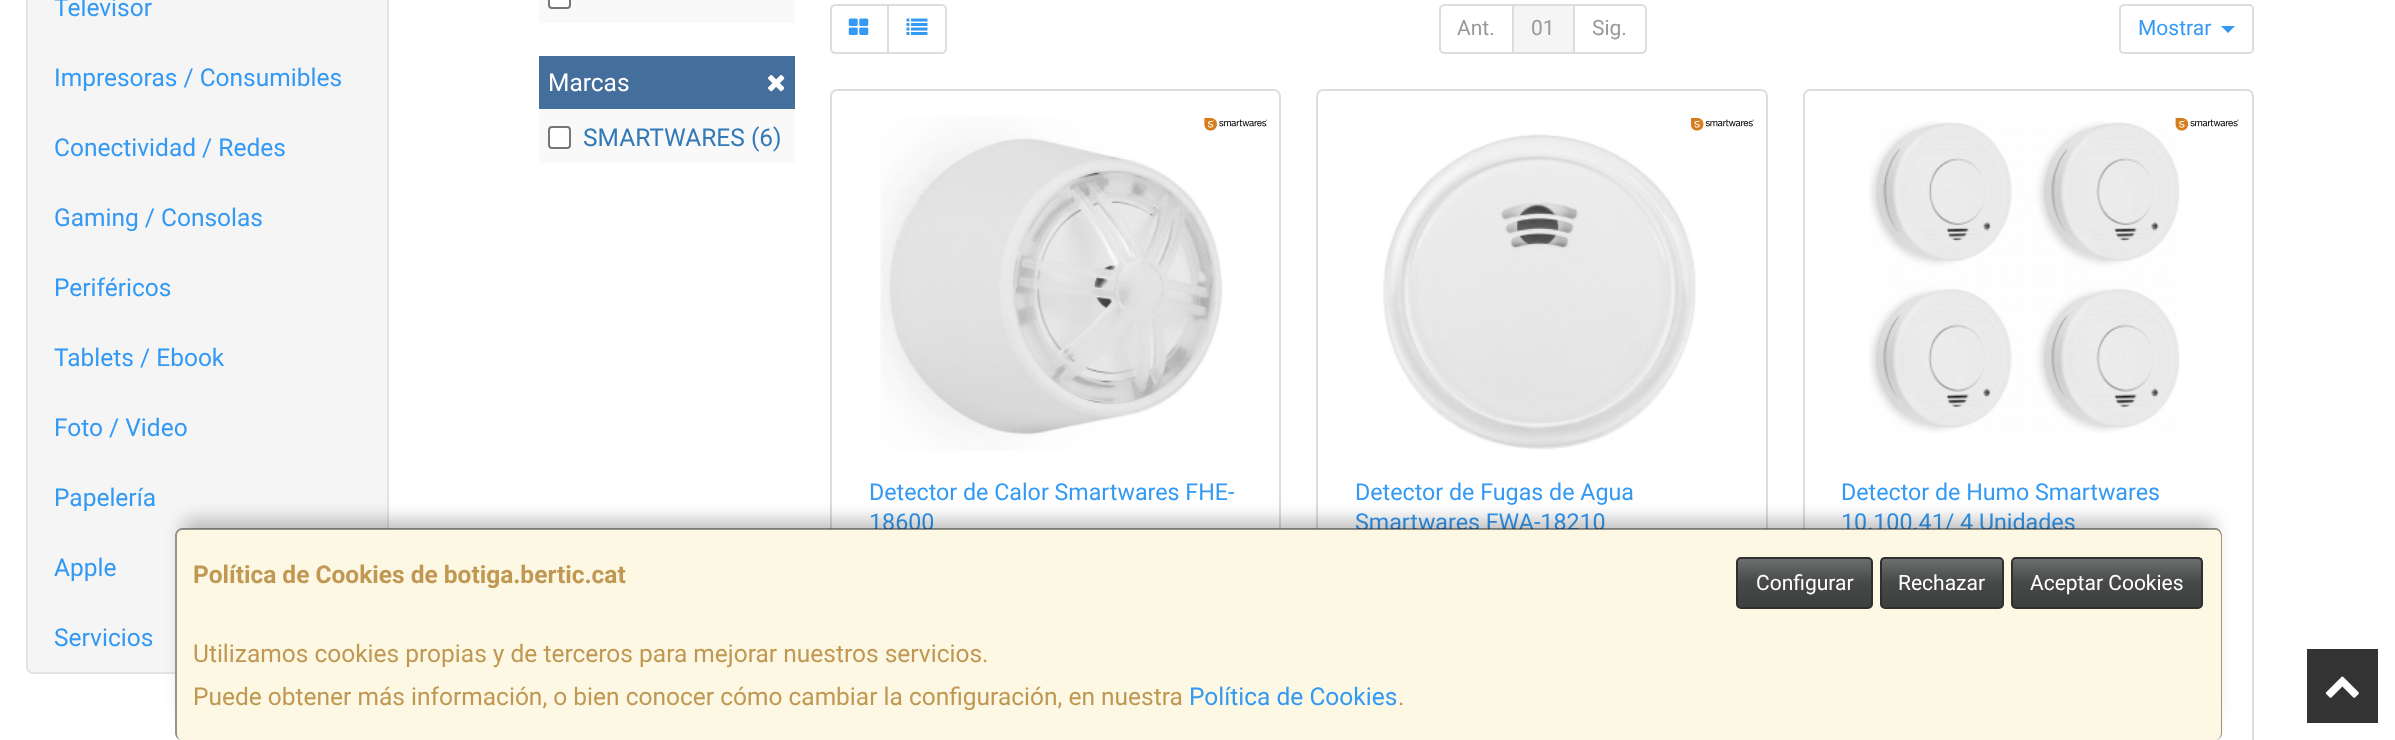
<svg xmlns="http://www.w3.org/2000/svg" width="2395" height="740">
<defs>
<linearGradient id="g1" gradientUnits="userSpaceOnUse" x1="1804" y1="558" x2="1804" y2="607"><stop offset="0" stop-color="#6d7070"/><stop offset="0.5" stop-color="#474949"/><stop offset="1" stop-color="#3d3f3f"/></linearGradient>
<linearGradient id="g2" gradientUnits="userSpaceOnUse" x1="1942" y1="558" x2="1942" y2="607"><stop offset="0" stop-color="#6d7070"/><stop offset="0.5" stop-color="#474949"/><stop offset="1" stop-color="#3d3f3f"/></linearGradient>
<linearGradient id="g3" gradientUnits="userSpaceOnUse" x1="2107" y1="558" x2="2107" y2="607"><stop offset="0" stop-color="#6d7070"/><stop offset="0.5" stop-color="#474949"/><stop offset="1" stop-color="#3d3f3f"/></linearGradient>
</defs>
<rect width="100%" height="100%" fill="#fff"/>
<rect x="27" y="-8" width="361" height="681" rx="6" fill="#f5f5f5" stroke="#e3e3e3" stroke-width="2"/>
<text x="54" y="16" style="font-family:Roboto;font-size:24.5px;fill:#3399f3">Televisor</text>
<text x="54" y="86" style="font-family:Roboto;font-size:24.5px;fill:#3399f3">Impresoras / Consumibles</text>
<text x="54" y="156" style="font-family:Roboto;font-size:24.5px;fill:#3399f3">Conectividad / Redes</text>
<text x="54" y="226" style="font-family:Roboto;font-size:24.5px;fill:#3399f3">Gaming / Consolas</text>
<text x="54" y="296" style="font-family:Roboto;font-size:24.5px;fill:#3399f3">Periféricos</text>
<text x="54" y="366" style="font-family:Roboto;font-size:24.5px;fill:#3399f3">Tablets / Ebook</text>
<text x="54" y="436" style="font-family:Roboto;font-size:24.5px;fill:#3399f3">Foto / Video</text>
<text x="54" y="506" style="font-family:Roboto;font-size:24.5px;fill:#3399f3">Papelería</text>
<text x="54" y="576" style="font-family:Roboto;font-size:24.5px;fill:#3399f3">Apple</text>
<text x="54" y="646" style="font-family:Roboto;font-size:24.5px;fill:#3399f3">Servicios</text>
<rect x="539" width="256" height="23" fill="#f9f9f9"/>
<rect x="549" y="-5" width="21" height="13" rx="3" fill="#fff" stroke="#767676" stroke-width="2"/>
<rect x="539" y="56" width="256" height="53" fill="#446e9b"/>
<text x="548" y="91" style="font-family:Roboto;font-size:24.5px;fill:#fff">Marcas</text>
<image x="768" y="75" width="17" height="17" href="media/1.png"/>
<rect x="539" y="109" width="256" height="54" fill="#f9f9f9"/>
<rect x="549" y="127" width="21" height="21" rx="3" fill="#fff" stroke="#767676" stroke-width="2"/>
<text x="583" y="146" style="font-family:Roboto;font-size:24.5px;fill:#337ab7">SMARTWARES (6)</text>
<path d="M835 5h53v48h-53c-2 0-4-2-4-4v-40c0-2 2-4 4-4z" fill="none" stroke="#ddd" stroke-width="2"/>
<image x="848" y="18" width="21" height="17" href="media/2.png"/>
<path d="M888 5h54c2 0 4 2 4 4v40c0 2-2 4-4 4h-54z" fill="#fff" stroke="#ddd" stroke-width="2"/>
<image x="906" y="18" width="22" height="17" href="media/3.png"/>
<path d="M1444 5h69v48h-69c-2 0-4-2-4-4v-40c0-2 2-4 4-4z" fill="none" stroke="#ddd" stroke-width="2"/>
<text x="1457" y="35" style="font-family:Roboto;font-size:21px;fill:#999">Ant.</text>
<path d="M1574 5h68c2 0 4 2 4 4v40c0 2-2 4-4 4h-68z" fill="none" stroke="#ddd" stroke-width="2"/>
<rect x="1513" y="5" width="61" height="48" fill="#f5f5f5" stroke="#ddd" stroke-width="2"/>
<text x="1531" y="35" style="font-family:Roboto;font-size:21px;fill:#999">01</text>
<text x="1592" y="35" style="font-family:Roboto;font-size:21px;fill:#999">Sig.</text>
<rect x="2120" y="5" width="133" height="48" rx="4" fill="none" stroke="#ddd" stroke-width="2"/>
<text x="2138" y="35" style="font-family:Roboto;font-size:21px;fill:#3399f3">Mostrar</text>
<path d="M2221 26h14l-7 7z" fill="#3399f3"/>
<rect x="831" y="90" width="449" height="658" rx="6" fill="none" stroke="#ddd" stroke-width="2"/>
<image x="880" y="116" width="343" height="335" href="media/4.png"/>
<image x="1204" y="117" width="63" height="14" href="media/5.png"/>
<text x="869" y="500" style="font-family:Roboto;font-size:23.25px;fill:#3399f3">Detector de Calor Smartwares FHE-</text>
<text x="869" y="530" style="font-family:Roboto;font-size:23.25px;fill:#3399f3">18600</text>
<rect x="1317" y="90" width="450" height="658" rx="6" fill="none" stroke="#ddd" stroke-width="2"/>
<image x="1691" y="117" width="63" height="14" href="media/6.png"/>
<image x="1383" y="134" width="313" height="316" href="media/7.png"/>
<text x="1355" y="500" style="font-family:Roboto;font-size:23.25px;fill:#3399f3">Detector de Fugas de Agua</text>
<text x="1355" y="530" style="font-family:Roboto;font-size:23.25px;fill:#3399f3">Smartwares FWA-18210</text>
<rect x="1804" y="90" width="449" height="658" rx="6" fill="none" stroke="#ddd" stroke-width="2"/>
<image x="1869" y="121" width="311" height="312" href="media/8.png"/>
<image x="2175" y="117" width="64" height="14" href="media/9.png"/>
<text x="1841" y="500" style="font-family:Roboto;font-size:23.25px;fill:#3399f3">Detector de Humo Smartwares</text>
<text x="1841" y="530" style="font-family:Roboto;font-size:23.25px;fill:#3399f3">10.100.41/ 4 Unidades</text>
<rect x="184" y="520" width="2030" height="194" fill="#00000040" filter="blur(9px)"/>
<rect x="175" y="529" width="2048" height="211" rx="7" fill="#fcf8e3"/>
<path d="M182 528h2034c3 0 6 4 6 8v197c0 4-3 7-6 7h-2034c-4 0-7-3-7-7v-197c0-4 3-8 7-8zm0 2h2034c2 0 5 3 5 6v197c0 4-3 7-5 7h-2034c-3 0-5-3-5-7v-197c0-3 2-6 5-6z" fill="#00000066" fill-rule="evenodd"/>
<text x="193" y="583" style="font-family:Roboto;font-size:24.5px;font-weight:bold;fill:#c09853">Política de Cookies de botiga.bertic.cat</text>
<rect x="1738" y="559" width="133" height="48" fill="url(#g1)"/>
<rect x="1737" y="558" width="135" height="50" rx="4" fill="none" stroke="#2e2f2f" stroke-width="2"/>
<text x="1756" y="590" style="font-family:Roboto;font-size:21px;fill:#fff">Configurar</text>
<rect x="1881" y="558" width="121" height="49" fill="url(#g2)"/>
<rect x="1881" y="558" width="122" height="50" rx="4" fill="none" stroke="#2e2f2f" stroke-width="2"/>
<text x="1898" y="590" style="font-family:Roboto;font-size:21px;fill:#fff">Rechazar</text>
<rect x="2013" y="558" width="189" height="49" fill="url(#g3)"/>
<rect x="2012" y="558" width="190" height="50" rx="4" fill="none" stroke="#2e2f2f" stroke-width="2"/>
<text x="2030" y="590" style="font-family:Roboto;font-size:21px;fill:#fff">Aceptar Cookies</text>
<text x="193" y="662" style="font-family:Roboto;font-size:24.5px;fill:#c09853">Utilizamos cookies propias y de terceros para mejorar nuestros servicios.</text>
<text x="193" y="705" style="font-family:Roboto;font-size:24.5px;fill:#c09853">Puede obtener más información, o bien conocer cómo cambiar la configuración, en nuestra</text>
<text x="1189" y="705" style="font-family:Roboto;font-size:24.5px;fill:#3399f3">Política de Cookies</text>
<text x="1398" y="705" style="font-family:Roboto;font-size:24.5px;fill:#c09853">.</text>
<rect x="2307" y="649" width="71" height="74" fill="#333"/>
<image x="2325" y="676" width="34" height="22" href="media/10.png"/>
</svg>
